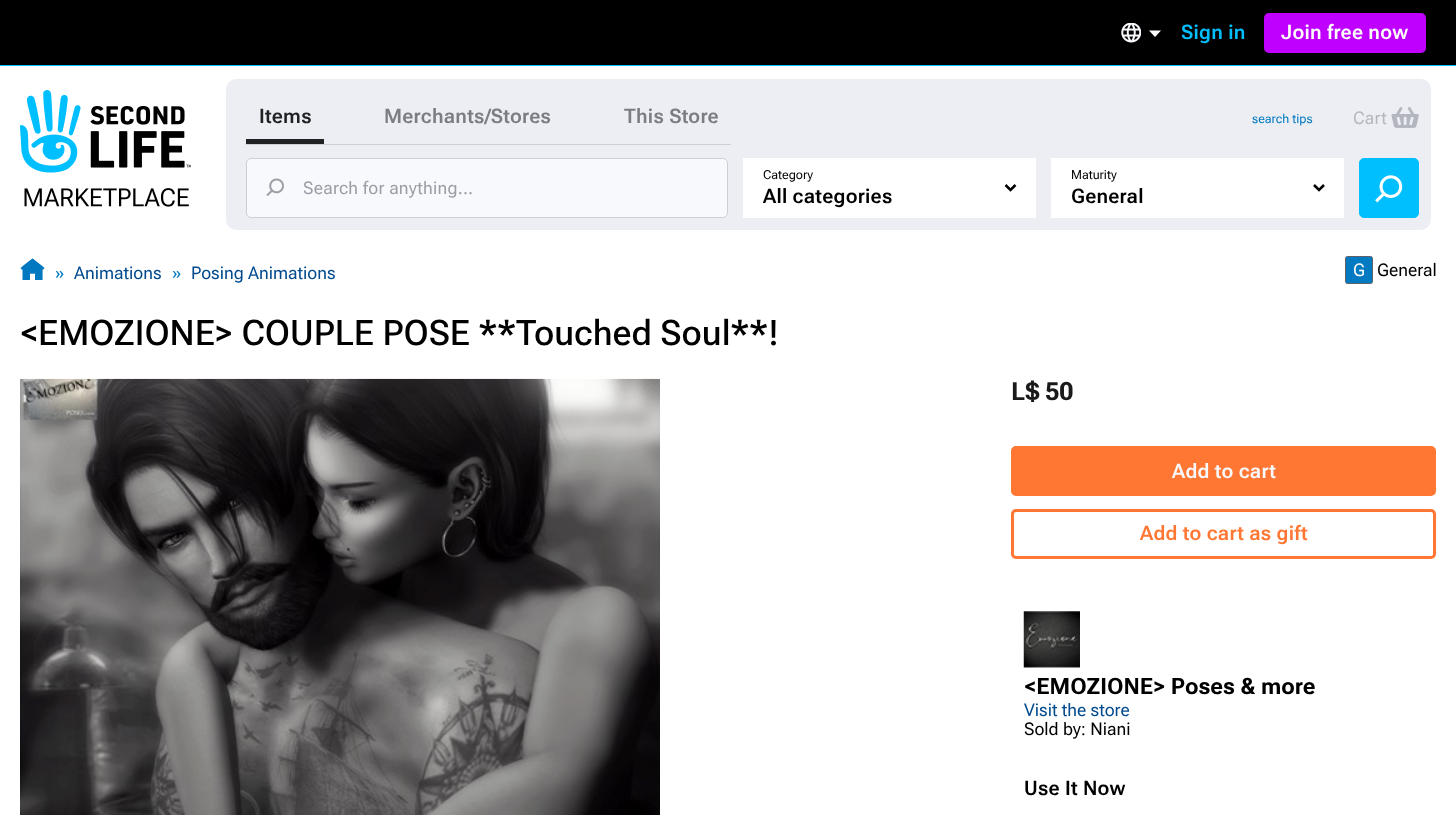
<svg xmlns="http://www.w3.org/2000/svg" width="1456" height="815">
<rect width="100%" height="100%" fill="#fff"/>
<rect width="1456" height="65" fill="#000"/>
<rect y="65" width="1456" height="1" fill="#00bfff"/>
<image x="1121" y="23" width="20" height="20" href="media/1.png"/>
<path d="M1149 30.5h12l-6 6.5z" fill="#fff"/>
<text x="1181" y="39" style="font-family:Roboto Flex;font-size:20px;font-weight:600;letter-spacing:0.25px;fill:#00bfff">Sign in</text>
<rect x="1265.5" y="14.5" width="159" height="37" rx="3.5" fill="#bf00ff" stroke="#bf00ff" stroke-width="3"/>
<text x="1281" y="39" style="font-family:Roboto Flex;font-size:20px;font-weight:600;letter-spacing:0.25px;fill:#fff">Join free now</text>
<image x="20" y="90" width="171" height="117" href="media/2.png"/>
<rect x="226" y="79" width="1205" height="151" rx="10" fill="#eceef3"/>
<rect x="246" y="144" width="485" height="1" fill="#cccfd7"/>
<rect x="246" y="139" width="78" height="5" fill="#202122"/>
<text x="259" y="123" style="font-family:Roboto Flex;font-size:20px;font-weight:600;letter-spacing:0.25px;fill:#202122">Items</text>
<text x="384" y="123" style="font-family:Roboto Flex;font-size:20px;font-weight:600;letter-spacing:0.25px;fill:#7c7d83">Merchants/Stores</text>
<text x="624" y="123" style="font-family:Roboto Flex;font-size:20px;font-weight:600;letter-spacing:0.25px;fill:#7c7d83">This Store</text>
<text x="1252" y="123" style="font-family:Roboto Flex;font-size:12.5px;fill:#017ac1">search tips</text>
<text x="1353" y="124" style="font-family:Roboto Flex;font-size:17.5px;letter-spacing:0.25px;fill:#b4b7c0">Cart</text>
<image x="1391" y="107" width="28" height="21" href="media/3.png"/>
<rect x="246.5" y="158.5" width="481" height="59" rx="4.5" fill="#f8f9fc" stroke="#cccfd7"/>
<image x="266" y="178" width="18" height="18" href="media/4.png"/>
<text x="303" y="194" style="font-family:Roboto Flex;font-size:17.5px;letter-spacing:0.25px;fill:#9b9ea6">Search for anything...</text>
<rect x="743" y="158" width="293" height="60" fill="#fff"/>
<text x="763" y="179" style="font-family:Roboto Flex;font-size:12.5px;fill:#000">Category</text>
<path d="M1005.5 185l5 5l5-5" fill="none" stroke="#000" stroke-width="2.5"/>
<text x="763" y="203" style="font-family:Roboto Flex;font-size:20px;font-weight:600;letter-spacing:0.25px;fill:#000">All categories</text>
<rect x="1051" y="158" width="293" height="60" fill="#fff"/>
<text x="1071" y="179" style="font-family:Roboto Flex;font-size:12.5px;fill:#000">Maturity</text>
<path d="M1314 185l5 5l5-5" fill="none" stroke="#000" stroke-width="2.5"/>
<text x="1071" y="203" style="font-family:Roboto Flex;font-size:20px;font-weight:600;letter-spacing:0.25px;fill:#000">General</text>
<rect x="1359.5" y="158.5" width="59" height="59" rx="4.5" fill="#00bfff" stroke="#00bfff"/>
<image x="1375" y="175" width="28" height="28" href="media/5.png"/>
<image x="20" y="258" width="25" height="22" href="media/6.png"/>
<text x="55" y="279" style="font-family:Roboto Flex;font-size:17.5px;fill:#017ac1">»</text>
<text x="74" y="279" style="font-family:Roboto Flex;font-size:17.5px;fill:#014a8e">Animations</text>
<text x="172" y="279" style="font-family:Roboto Flex;font-size:17.5px;fill:#017ac1">»</text>
<text x="191" y="279" style="font-family:Roboto Flex;font-size:17.5px;fill:#014a8e">Posing Animations</text>
<rect x="1345.5" y="256.5" width="27" height="27" rx="2" fill="#017ac1" stroke="#606166"/>
<text x="1353" y="276" style="font-family:Roboto Flex;font-size:17.5px;fill:#fff">G</text>
<text x="1377" y="276" style="font-family:Roboto Flex;font-size:17.5px;fill:#000">General</text>
<text x="20" y="345" style="font-family:Roboto Flex;font-size:35px;font-weight:500;fill:#000">&lt;EMOZIONE&gt; COUPLE POSE **Touched Soul**!</text>
<image x="20" y="378" width="640" height="437" href="media/7.png"/>
<text x="1011" y="400" style="font-family:Roboto Flex;font-size:25px;font-weight:bold;fill:#1a1a1a">L$ 50</text>
<rect x="1012.5" y="447.5" width="422" height="47" rx="3.5" fill="#f73" stroke="#f73" stroke-width="3"/>
<text x="1172" y="478" style="font-family:Roboto Flex;font-size:20px;font-weight:600;letter-spacing:0.25px;fill:#f8f9fc">Add to cart</text>
<rect x="1012.5" y="510.5" width="422" height="47" rx="3.5" fill="none" stroke="#f73" stroke-width="3"/>
<text x="1140" y="540" style="font-family:Roboto Flex;font-size:20px;font-weight:600;letter-spacing:0.25px;fill:#f73">Add to cart as gift</text>
<image x="1023" y="611" width="57" height="57" href="media/8.png"/>
<text x="1024" y="694" style="font-family:Roboto Flex;font-size:22.5px;font-weight:bold;fill:#000">&lt;EMOZIONE&gt; Poses &amp; more</text>
<text x="1024" y="716" style="font-family:Roboto Flex;font-size:17.5px;fill:#014a8e">Visit the store</text>
<text x="1024" y="735" style="font-family:Roboto Flex;font-size:17.5px;fill:#000">Sold by: Niani</text>
<text x="1024" y="795" style="font-family:Roboto Flex;font-size:20px;font-weight:600;letter-spacing:0.25px;fill:#000">Use It Now</text>
</svg>
